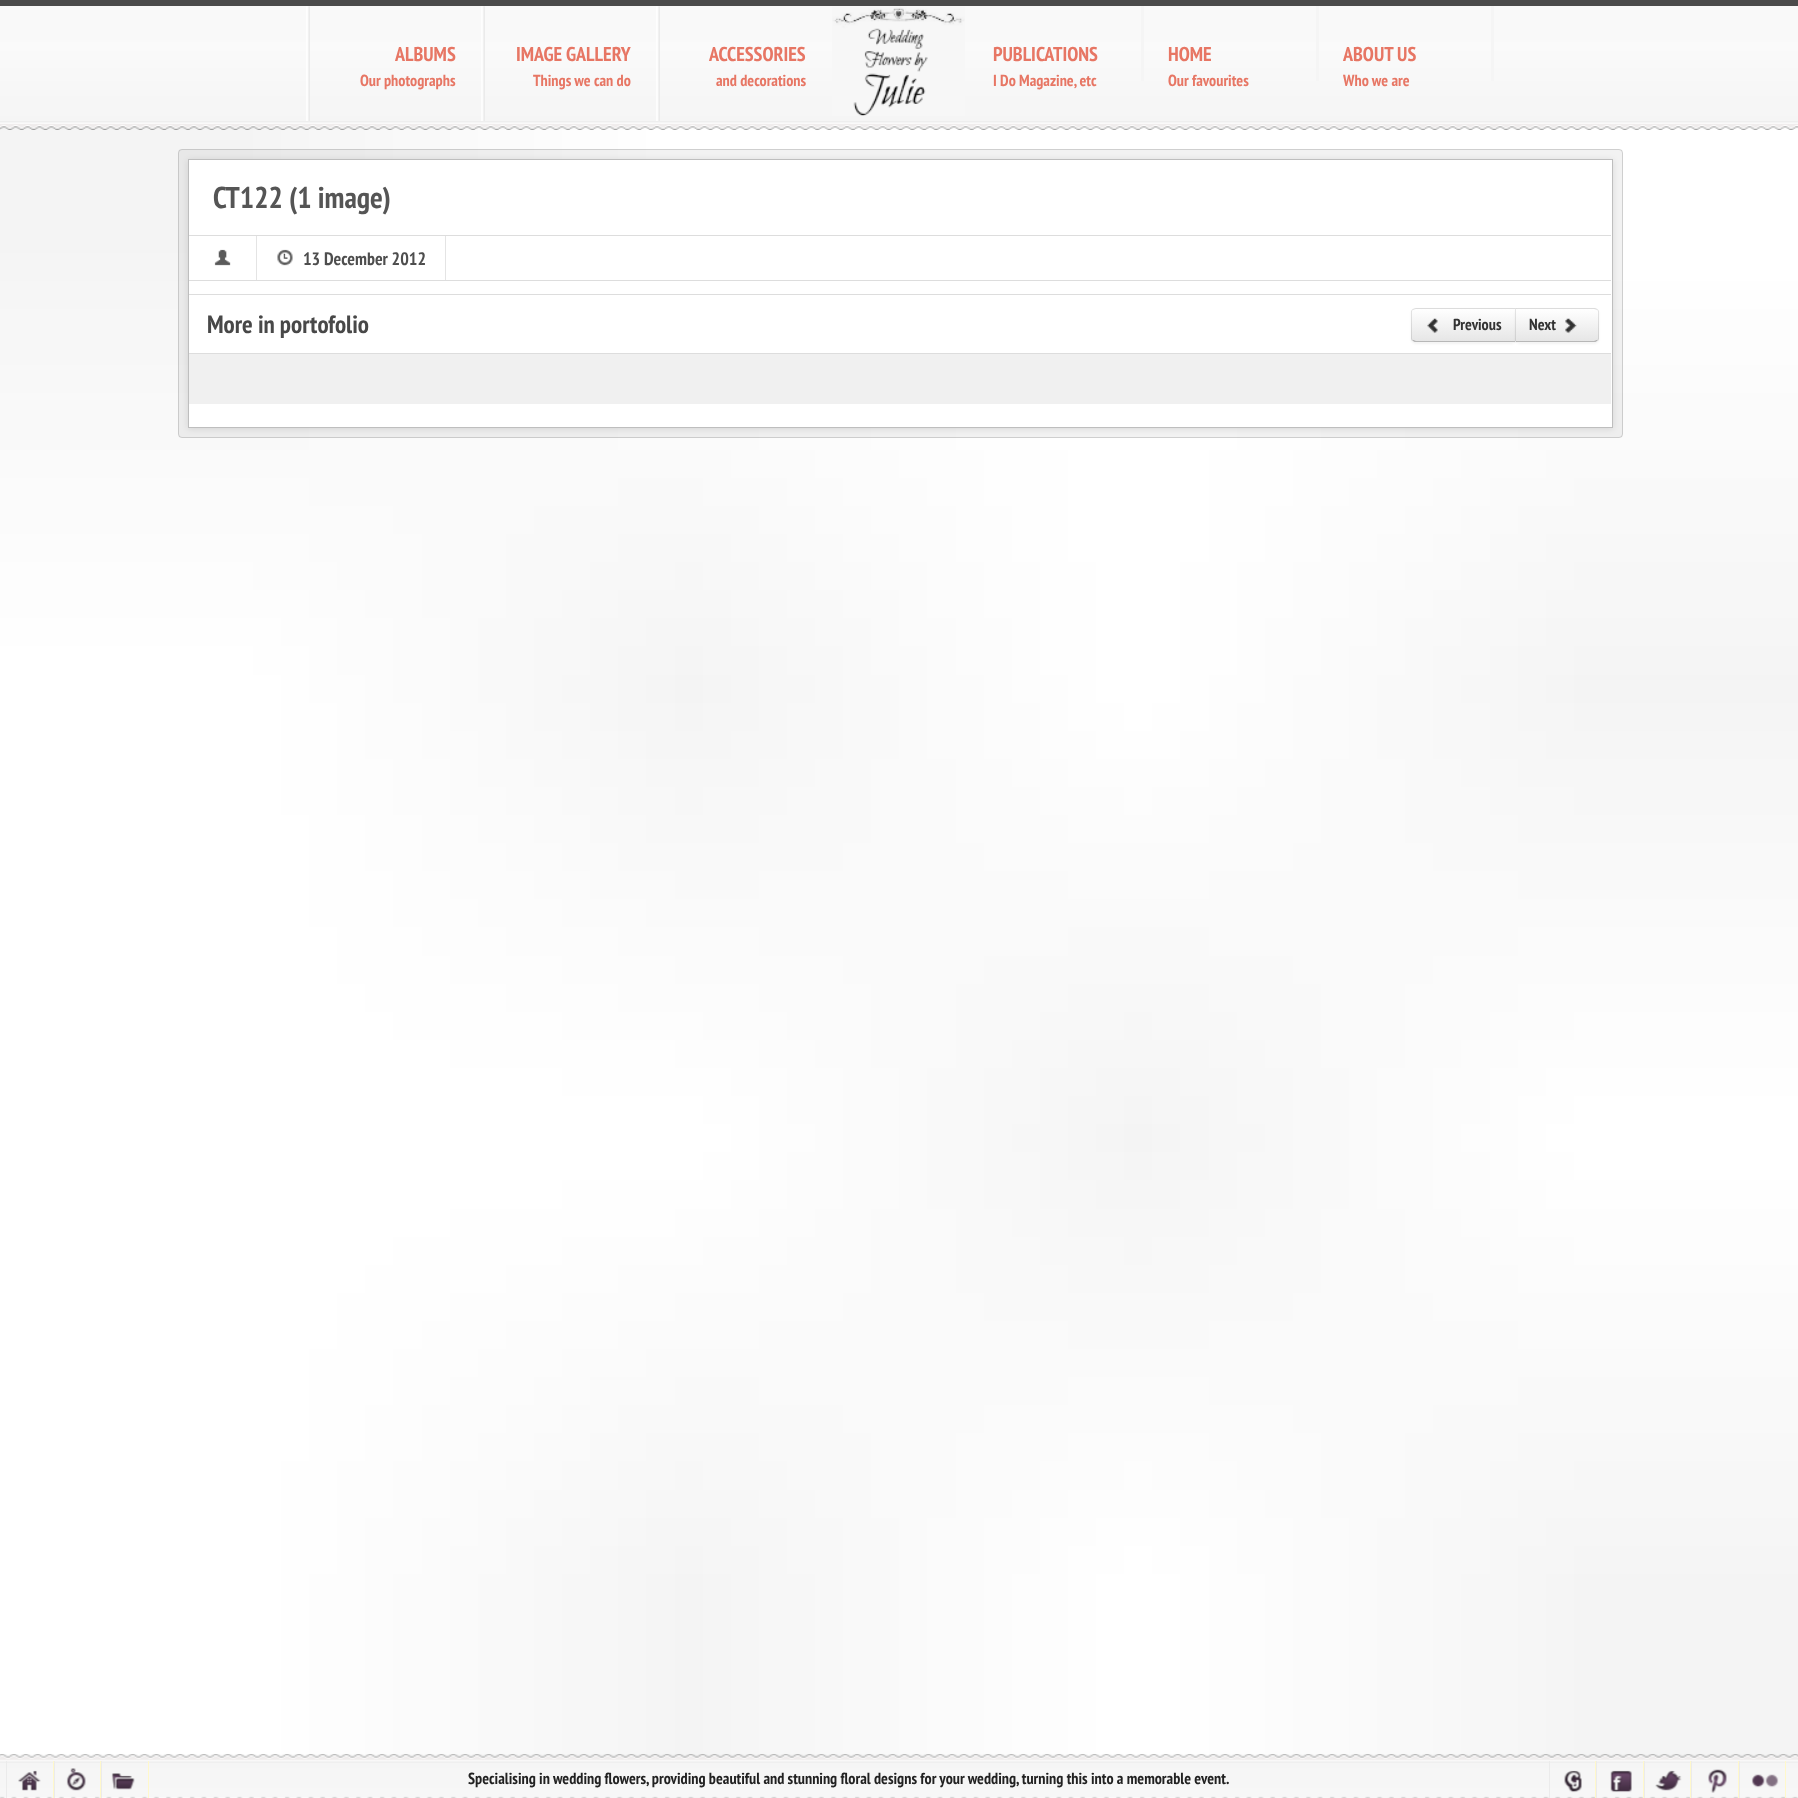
<svg xmlns="http://www.w3.org/2000/svg" width="1798" height="1798">
<defs>
<clipPath id="clip1"><path d="M1416 308h100v35h-100c-3 0-5-2-5-5v-25c0-3 2-5 5-5z"/></clipPath>
<linearGradient id="g1" gradientUnits="userSpaceOnUse" x1="1464" y1="309" x2="1464" y2="341"><stop offset="0" stop-color="#fff"/><stop offset="1" stop-color="#e6e6e6"/></linearGradient>
<clipPath id="clip2"><path d="M1515 308h79c3 0 5 2 5 5v25c0 3-2 5-5 5h-79z"/></clipPath>
<linearGradient id="g2" gradientUnits="userSpaceOnUse" x1="1557" y1="309" x2="1557" y2="341"><stop offset="0" stop-color="#fff"/><stop offset="1" stop-color="#e6e6e6"/></linearGradient>
</defs>
<rect width="100%" height="100%" fill="#fff"/>
<image x="0" y="126" width="1798" height="1672" href="media/1.png"/>
<image x="0" y="6" width="1798" height="124" href="media/2.png"/>
<rect width="1798" height="6" fill="#4b4b4b"/>
<image x="832" y="6" width="133" height="110" href="media/3.png"/>
<image x="306" y="6" width="4" height="115" href="media/4.png"/>
<text x="395" y="61" style="font-family:PT Sans Narrow;font-size:20px;font-weight:bold;fill:#e77664">ALBUMS</text>
<text x="360" y="86" style="font-family:PT Sans Narrow;font-size:16px;font-weight:bold;fill:#e77664">Our photographs</text>
<image x="481" y="6" width="4" height="115" href="media/4.png"/>
<text x="516" y="61" style="font-family:PT Sans Narrow;font-size:20px;font-weight:bold;fill:#e77664">IMAGE GALLERY</text>
<text x="533" y="86" style="font-family:PT Sans Narrow;font-size:16px;font-weight:bold;fill:#e77664">Things we can do</text>
<image x="656" y="6" width="4" height="115" href="media/4.png"/>
<text x="709" y="61" style="font-family:PT Sans Narrow;font-size:20px;font-weight:bold;fill:#e77664">ACCESSORIES</text>
<text x="716" y="86" style="font-family:PT Sans Narrow;font-size:16px;font-weight:bold;fill:#e77664">and decorations</text>
<rect x="1141" y="6" width="3" height="75" fill="#f5f5f5"/>
<text x="993" y="61" style="font-family:PT Sans Narrow;font-size:20px;font-weight:bold;fill:#e77664">PUBLICATIONS</text>
<text x="993" y="86" style="font-family:PT Sans Narrow;font-size:16px;font-weight:bold;fill:#e77664">I Do Magazine, etc</text>
<rect x="1316" y="6" width="3" height="75" fill="#f5f5f5"/>
<text x="1168" y="61" style="font-family:PT Sans Narrow;font-size:20px;font-weight:bold;fill:#e77664">HOME</text>
<text x="1168" y="86" style="font-family:PT Sans Narrow;font-size:16px;font-weight:bold;fill:#e77664">Our favourites</text>
<rect x="1491" y="6" width="3" height="75" fill="#f5f5f5"/>
<text x="1343" y="61" style="font-family:PT Sans Narrow;font-size:20px;font-weight:bold;fill:#e77664">ABOUT US</text>
<text x="1343" y="86" style="font-family:PT Sans Narrow;font-size:16px;font-weight:bold;fill:#e77664">Who we are</text>
<rect x="178" y="149" width="1445" height="289" rx="4" fill="#7d7d7d1a"/>
<rect x="178.5" y="149.5" width="1444" height="288" rx="3.5" fill="none" stroke="#7d7d7d4d"/>
<rect x="188" y="160" width="1425" height="269" fill="#0000001a" filter="blur(3px)"/>
<rect x="188.5" y="159.5" width="1424" height="268" fill="#fff" stroke="#bebebe"/>
<rect x="189" y="235" width="1422" height="1" fill="#ddd"/>
<text x="213" y="208" style="font-family:PT Sans Narrow;font-size:30px;font-weight:bold;fill:#555">CT122 (1 image)</text>
<rect x="189" y="280" width="1422" height="1" fill="#ddd"/>
<rect x="256" y="236" width="1" height="44" fill="#e4e4e4"/>
<image x="214" y="249" width="17" height="17" href="media/5.png"/>
<rect x="445" y="236" width="1" height="44" fill="#e4e4e4"/>
<image x="277" y="249" width="16" height="17" href="media/6.png"/>
<text x="303" y="265" style="font-family:PT Sans Narrow;font-size:18px;font-weight:bold;fill:#4e4e4e">13 December 2012</text>
<rect x="189" y="294" width="1422" height="1" fill="#ddd"/>
<rect x="189" y="353" width="1422" height="1" fill="#ddd"/>
<text x="207" y="333" style="font-family:PT Sans Narrow;font-size:25px;font-weight:bold;fill:#484848">More in portofolio</text>
<rect x="1411" y="309" width="105" height="35" rx="5" fill="#0000000d" filter="blur(1px)"/>
<path d="M1416 308h100v35h-100c-3 0-5-2-5-5v-25c0-3 2-5 5-5z" fill="#f5f5f5"/>
<g clip-path="url(#clip1)">
<rect x="1411" y="309" width="104" height="32" fill="url(#g1)"/>
</g>
<path d="M1416 308l-3 1v1l3-1h99l1-1z" fill="#0000001a"/>
<path d="M1516 342h-100c-1 0-2 0-3-1v-1l3 1h99z" fill="#00000040"/>
<path d="M1411 311l1.5-2l1 .5c-1 .5-1.5 1.5-1.5 2.5v26c0 1 .5 2 1.5 2.5l-1 .5l-1.5-2z" fill="#0000001a"/>
<image x="1427" y="318" width="11" height="16" href="media/7.png"/>
<text x="1453" y="330" style="font-family:PT Sans Narrow;font-size:16px;font-weight:bold;fill:#333">Previous</text>
<rect x="1515" y="309" width="84" height="35" rx="5" fill="#0000000d" filter="blur(1px)"/>
<path d="M1515 308h79c3 0 5 2 5 5v25c0 3-2 5-5 5h-79z" fill="#f5f5f5"/>
<g clip-path="url(#clip2)">
<rect x="1515" y="309" width="84" height="32" fill="url(#g2)"/>
</g>
<path d="M1597 309c-1-1-2-1-3-1h-78v1h78l3 1z" fill="#0000001a"/>
<path d="M1597.5 309l1.5 2v28l-1.5 2l-1-.5c1-.5 1.5-1.5 1.5-2.5v-26c0-1-.5-2-1.5-2.5z" fill="#0000001a"/>
<path d="M1597 341c-1 1-2 1-3 1h-78v-1h78l3-1z" fill="#00000040"/>
<path d="M1516 309v32h.5l-1 1h-.5v-34h.5l1 1z" fill="#0000001a"/>
<text x="1529" y="330" style="font-family:PT Sans Narrow;font-size:16px;font-weight:bold;fill:#333">Next</text>
<image x="1565" y="318" width="12" height="16" href="media/8.png"/>
<rect x="189" y="354" width="1422" height="50" fill="#f0f0f0"/>
<image x="0" y="1754" width="1798" height="44" href="media/9.png"/>
<rect x="53" y="1761" width="1" height="37" fill="#fff8cb"/>
<rect x="6" y="1761" width="1" height="37" fill="#ebebeb"/>
<image x="18" y="1770" width="23" height="21" href="media/10.png"/>
<rect x="100" y="1761" width="1" height="37" fill="#fff8cb"/>
<rect x="54" y="1761" width="1" height="37" fill="#ebebeb"/>
<image x="66" y="1768" width="20" height="23" href="media/11.png"/>
<rect x="148" y="1761" width="1" height="37" fill="#fff8cb"/>
<rect x="101" y="1761" width="1" height="37" fill="#ebebeb"/>
<image x="111" y="1773" width="24" height="17" href="media/12.png"/>
<text x="468" y="1784" style="font-family:PT Sans Narrow;font-size:16px;font-weight:bold;fill:#222">Specialising in wedding flowers, providing beautiful and stunning floral designs for your wedding, turning this into a memorable event.</text>
<rect x="1595" y="1761" width="1" height="37" fill="#fff8cb"/>
<rect x="1549" y="1761" width="1" height="37" fill="#ebebeb"/>
<image x="1564" y="1770" width="18" height="23" href="media/13.png"/>
<rect x="1643" y="1761" width="1" height="37" fill="#fff8cb"/>
<rect x="1596" y="1761" width="1" height="37" fill="#ebebeb"/>
<image x="1610" y="1770" width="22" height="23" href="media/14.png"/>
<rect x="1690" y="1761" width="1" height="37" fill="#fff8cb"/>
<rect x="1644" y="1761" width="1" height="37" fill="#ebebeb"/>
<image x="1655" y="1770" width="27" height="21" href="media/15.png"/>
<rect x="1738" y="1761" width="1" height="37" fill="#fff8cb"/>
<rect x="1691" y="1761" width="1" height="37" fill="#ebebeb"/>
<image x="1708" y="1769" width="19" height="24" href="media/16.png"/>
<rect x="1785" y="1761" width="1" height="37" fill="#fff8cb"/>
<rect x="1739" y="1761" width="1" height="37" fill="#ebebeb"/>
<image x="1751" y="1774" width="28" height="14" href="media/17.png"/>
</svg>
